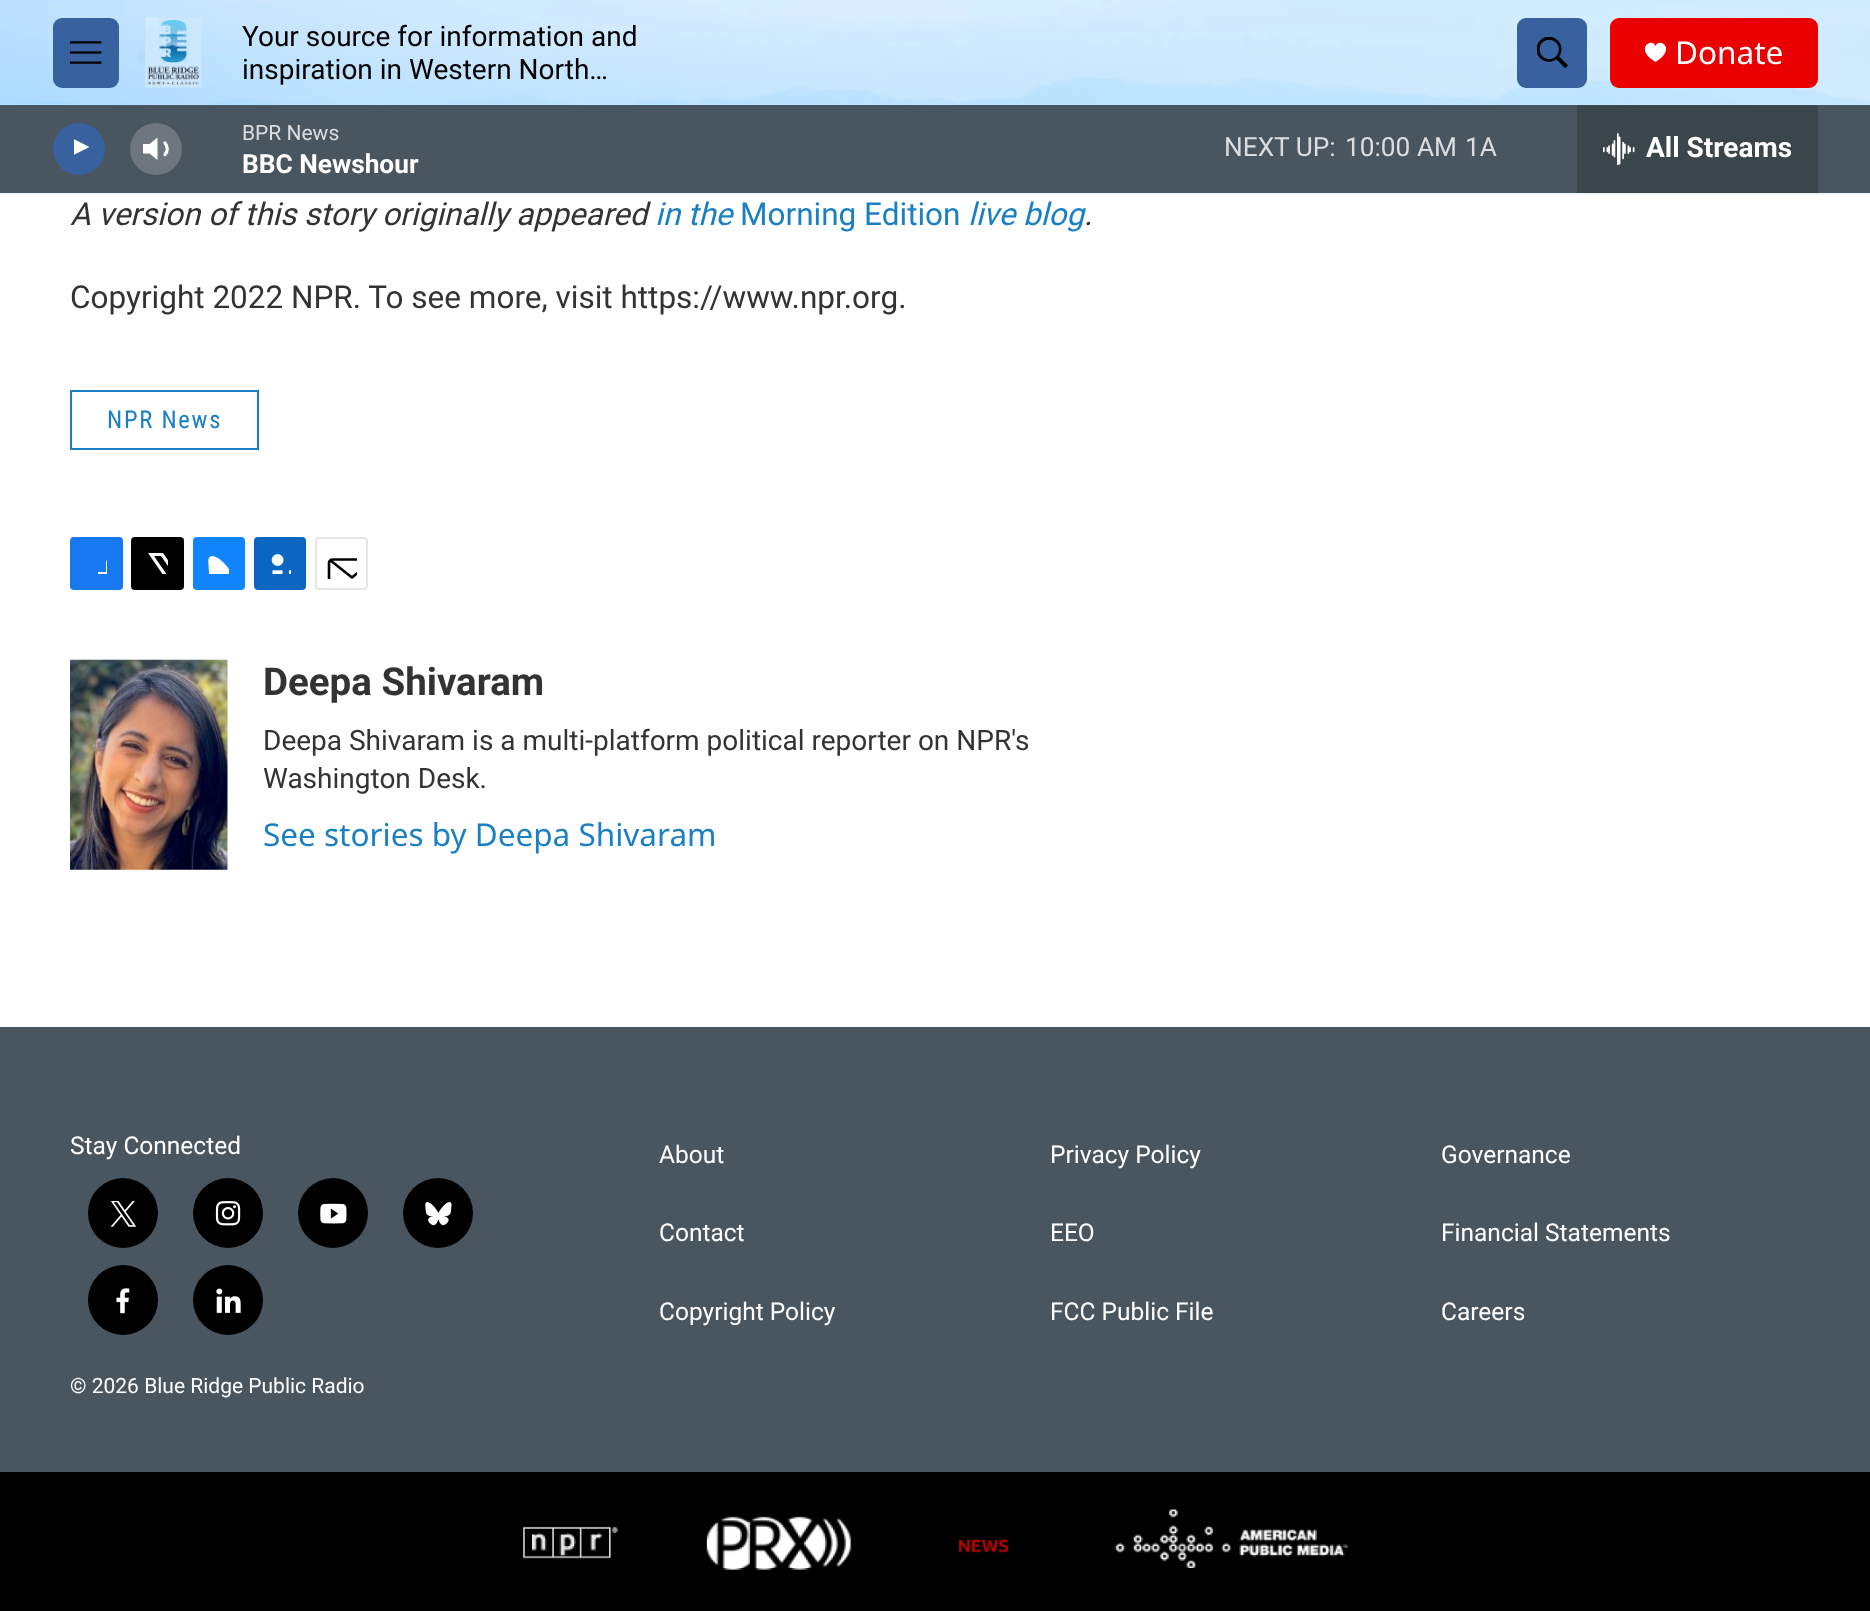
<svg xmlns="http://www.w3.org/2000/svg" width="1870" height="1611">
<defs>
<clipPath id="clip1"><rect x="74" y="137" width="20" height="26"/></clipPath>
<clipPath id="clip2"><rect x="86" y="553" width="21" height="21"/></clipPath>
<clipPath id="clip3"><rect x="147" y="553" width="21" height="21"/></clipPath>
<clipPath id="clip4"><rect x="326" y="548" width="31" height="31"/></clipPath>
</defs>
<rect width="100%" height="100%" fill="#fff"/>
<rect y="193" width="1870" height="2" fill="#f5f5f5"/>
<image x="0" y="0" width="1870" height="105" href="media/1.png"/>
<rect x="53" y="18" width="66" height="70" rx="9" fill="#37629f"/>
<image x="70" y="41" width="32" height="23" href="media/2.png"/>
<image x="145" y="17" width="57" height="71" href="media/3.png"/>
<text x="242" y="46" style="font-family:Roboto;font-size:28px;fill:#000">Your source for information and</text>
<text x="242" y="79" style="font-family:Roboto;font-size:28px;fill:#000">inspiration in Western North…</text>
<rect x="1517" y="18" width="70" height="70" rx="9" fill="#37629f"/>
<image x="1537" y="37" width="31" height="31" href="media/4.png"/>
<rect x="1610" y="18" width="208" height="70" rx="9" fill="#ea0000"/>
<path d="M1655.5 46c-3.5-9-22 2.5 0 16c22-13.5 3.5-25 0-16z" fill="#fff"/>
<text x="1675" y="64" style="font-family:Noto Sans;font-size:31.5px;fill:#fff">Donate</text>
<rect y="105" width="1870" height="88" fill="#4a565f"/>
<circle cx="79" cy="149" r="26" fill="#37629f"/>
<g clip-path="url(#clip1)">
<path d="M72.5 138.5l17 8.5l-17 8.5z" fill="#fff"/>
</g>
<path d="M157.5 137.5l-8 6.5h-6.5v9.5h6.5l8 6.5z" fill="#fff"/>
<path d="M165 143c3 3.5 3 8.5 0 11.5" fill="none" stroke="#fff" stroke-width="3.2" stroke-linecap="round" stroke-linejoin="round"/>
<circle cx="156" cy="149" r="26" fill="#ffffff33"/>
<text x="242" y="140" style="font-family:Roboto;font-size:21px;fill:#dbdddf">BPR News</text>
<text x="242" y="173" style="font-family:'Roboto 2';font-size:26.25px;font-weight:bold;fill:#fff">BBC Newshour</text>
<text x="1224" y="156" style="font-family:Roboto;font-size:26.25px;fill:#dbdddf">NEXT UP:</text>
<text x="1345" y="156" style="font-family:Roboto;font-size:26.25px;fill:#dbdddf">10:00 AM</text>
<text x="1465" y="156" style="font-family:Roboto;font-size:26.25px;fill:#dbdddf">1A</text>
<rect x="1577" y="105" width="241" height="88" fill="#3b454c"/>
<image x="1603" y="133" width="32" height="32" href="media/5.png"/>
<text x="1646" y="157" style="font-family:'Roboto 2';font-size:28px;font-weight:bold;fill:#fff">All Streams</text>
<text x="70" y="225" style="font-family:Roboto;font-size:31.5px;font-style:italic;fill:#333">A version of this story originally appeared</text>
<text x="655" y="225" style="font-family:Roboto;font-size:31.5px;font-style:italic;fill:#1a7fc3">in the</text>
<text x="740" y="225" style="font-family:Roboto;font-size:31.5px;fill:#1a7fc3">Morning Edition</text>
<text x="968" y="225" style="font-family:Roboto;font-size:31.5px;font-style:italic;fill:#1a7fc3">live blog</text>
<text x="1084" y="225" style="font-family:Roboto;font-size:31.5px;font-style:italic;fill:#333">.</text>
<text x="70" y="308" style="font-family:Roboto;font-size:31.5px;fill:#333">Copyright 2022 NPR. To see more, visit https://www.npr.org.</text>
<rect x="71" y="391" width="187" height="58" fill="none" stroke="#1a7fc3" stroke-width="2"/>
<text x="107" y="428" style="font-family:Roboto Condensed;font-size:24.5px;letter-spacing:1.75px;fill:#1a7fc3">NPR News</text>
<rect x="70" y="537" width="53" height="53" rx="4" fill="#1778f2"/>
<g clip-path="url(#clip2)">
<path d="M115 590h-9v-9h-8v-9h8v-9c1-8.5 9.5-10 17-9v8c-9.5 0-8 2.5-8 10h8l-1 9h-7z" fill="#fff"/>
</g>
<rect x="131" y="537" width="53" height="53" rx="4" fill="#000"/>
<g clip-path="url(#clip3)">
<path d="M178 575l6 8.5c0 1.5 0 3.5-.5 4.5l-22.5-32h-7l23.5 34h-4l-3.5-5l-4.5 5h-4.5l7-8l-20-29h15l13 19l8-9v5z" fill="#fff"/>
</g>
<rect x="193" y="537" width="52" height="53" rx="4" fill="#1185fe"/>
<image x="208" y="556" width="21" height="18" href="media/6.png"/>
<rect x="254" y="537" width="52" height="53" rx="4" fill="#0a66c1"/>
<image x="271" y="554" width="20" height="20" href="media/7.png"/>
<rect x="316" y="538" width="51" height="51" rx="3" fill="none" stroke="#e6e6e6" stroke-width="2"/>
<g clip-path="url(#clip4)">
<path d="M374.5 586c0 2-1.5 3.5-3.5 3.5h-38.5c-2 0-3.5-1.5-3.5-3.5v-23.5c0-1.5 1.5-3 3.5-3h38.5c2 0 3.5 1.5 3.5 3zm-1.5-25.5l-21 17l-21.5-17" fill="none" stroke="#000" stroke-width="2.6" stroke-linecap="round" stroke-linejoin="round"/>
</g>
<image x="70" y="659" width="158" height="211" href="media/8.png"/>
<text x="263" y="695" style="font-family:Roboto;font-size:38.5px;font-weight:bold;fill:#333">Deepa Shivaram</text>
<text x="263" y="750" style="font-family:Roboto;font-size:28px;fill:#333">Deepa Shivaram is a multi-platform political reporter on NPR's</text>
<text x="263" y="788" style="font-family:Roboto;font-size:28px;fill:#333">Washington Desk.</text>
<text x="263" y="846" style="font-family:Noto Sans;font-size:31.5px;fill:#1a7fc3">See stories by Deepa Shivaram</text>
<rect y="1027" width="1870" height="445" fill="#4a565f"/>
<text x="70" y="1154" style="font-family:Roboto;font-size:24.5px;fill:#fff">Stay Connected</text>
<circle cx="123" cy="1213" r="35" fill="#000"/>
<image x="110" y="1201" width="27" height="26" href="media/9.png"/>
<circle cx="228" cy="1213" r="35" fill="#000"/>
<image x="215" y="1201" width="26" height="25" href="media/10.png"/>
<circle cx="333" cy="1213" r="35" fill="#000"/>
<image x="320" y="1203" width="27" height="21" href="media/11.png"/>
<circle cx="438" cy="1213" r="35" fill="#000"/>
<image x="425" y="1202" width="27" height="24" href="media/12.png"/>
<circle cx="123" cy="1300" r="35" fill="#000"/>
<image x="116" y="1288" width="14" height="26" href="media/13.png"/>
<circle cx="228" cy="1300" r="35" fill="#000"/>
<image x="216" y="1288" width="25" height="25" href="media/14.png"/>
<text x="70" y="1393" style="font-family:Roboto;font-size:21px;fill:#fff">© 2026 Blue Ridge Public Radio</text>
<text x="659" y="1163" style="font-family:Roboto;font-size:24.5px;fill:#fff">About</text>
<text x="1050" y="1163" style="font-family:Roboto;font-size:24.5px;fill:#fff">Privacy Policy</text>
<text x="1441" y="1163" style="font-family:Roboto;font-size:24.5px;fill:#fff">Governance</text>
<text x="659" y="1241" style="font-family:Roboto;font-size:24.5px;fill:#fff">Contact</text>
<text x="1050" y="1241" style="font-family:Roboto;font-size:24.5px;fill:#fff">EEO</text>
<text x="1441" y="1241" style="font-family:Roboto;font-size:24.5px;fill:#fff">Financial Statements</text>
<text x="659" y="1320" style="font-family:Roboto;font-size:24.5px;fill:#fff">Copyright Policy</text>
<text x="1050" y="1320" style="font-family:Roboto;font-size:24.5px;fill:#fff">FCC Public File</text>
<text x="1441" y="1320" style="font-family:Roboto;font-size:24.5px;fill:#fff">Careers</text>
<rect y="1472" width="1870" height="139" fill="#000"/>
<image x="523" y="1526" width="95" height="33" href="media/15.png"/>
<image x="706" y="1516" width="146" height="54" href="media/16.png"/>
<image x="959" y="1533" width="49" height="20" href="media/17.png"/>
<image x="1114" y="1509" width="234" height="59" href="media/18.png"/>
</svg>
